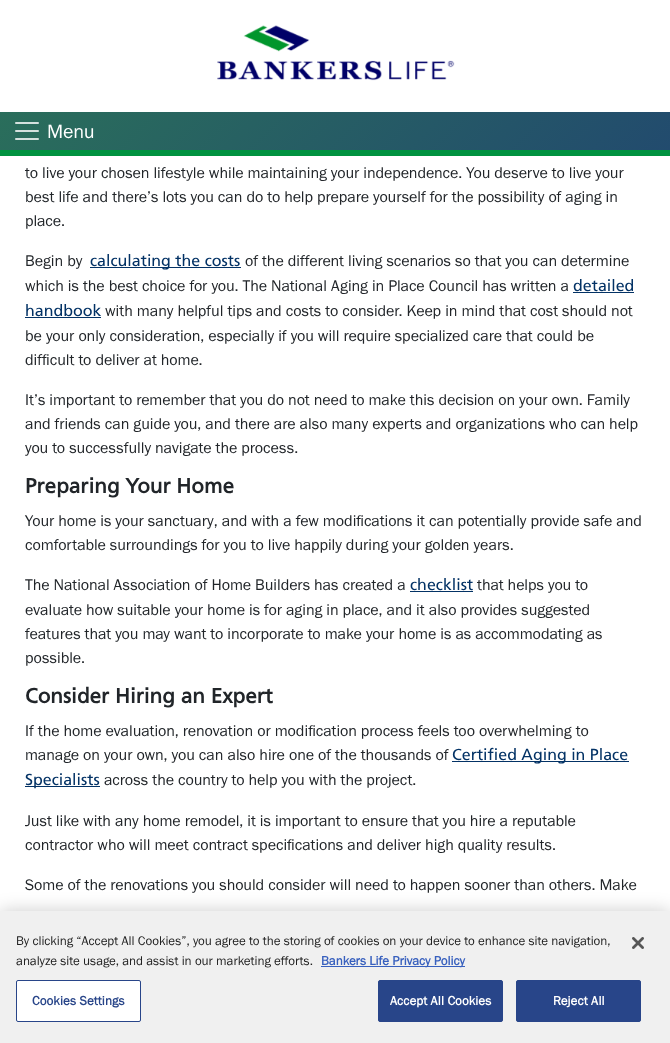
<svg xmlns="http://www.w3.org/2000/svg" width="670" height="1043">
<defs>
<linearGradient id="g1" gradientUnits="userSpaceOnUse" x1="158" y1="-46" x2="512" y2="308"><stop offset="0" stop-color="#2a6e5b"/><stop offset="1" stop-color="#224b6e"/></linearGradient>
</defs>
<rect width="100%" height="100%" fill="#fff"/>
<image x="217" y="25" width="238" height="56" href="media/1.png"/>
<rect y="112" width="670" height="38" fill="url(#g1)"/>
<rect y="150" width="670" height="6" fill="#00923f"/>
<image x="15" y="122" width="24" height="18" href="media/2.png"/>
<text x="47" y="138" style="font-family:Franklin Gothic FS;font-size:20px;fill:#fff">Menu</text>
<text x="25" y="178" style="font-family:Franklin Gothic FS;font-size:16px;fill:#212529">to live your chosen lifestyle while maintaining your independence. You deserve to live your</text>
<text x="25" y="202" style="font-family:Franklin Gothic FS;font-size:16px;fill:#212529">best life and there’s lots you can do to help prepare yourself for the possibility of aging in</text>
<text x="25" y="226" style="font-family:Franklin Gothic FS;font-size:16px;fill:#212529">place.</text>
<text x="25" y="266" style="font-family:Franklin Gothic FS;font-size:16px;fill:#212529">Begin by</text>
<rect x="90" y="267" width="151" height="1" fill="#033265"/>
<text x="90" y="266" style="font-family:Frutiger;font-size:16px;fill:#033265">calculating the costs</text>
<text x="245" y="266" style="font-family:Franklin Gothic FS;font-size:16px;fill:#212529">of the different living scenarios so that you can determine</text>
<text x="25" y="291" style="font-family:Franklin Gothic FS;font-size:16px;fill:#212529">which is the best choice for you. The National Aging in Place Council has written a</text>
<text x="573" y="291" style="font-family:Frutiger;font-size:16px;fill:#033265">detailed</text>
<rect x="573" y="292" width="61" height="1" fill="#033265"/>
<text x="25" y="316" style="font-family:Frutiger;font-size:16px;fill:#033265">handbook</text>
<rect x="25" y="317" width="76" height="1" fill="#033265"/>
<text x="105" y="316" style="font-family:Franklin Gothic FS;font-size:16px;fill:#212529">with many helpful tips and costs to consider. Keep in mind that cost should not</text>
<text x="25" y="341" style="font-family:Franklin Gothic FS;font-size:16px;fill:#212529">be your only consideration, especially if you will require specialized care that could be</text>
<text x="25" y="365" style="font-family:Franklin Gothic FS;font-size:16px;fill:#212529">difficult to deliver at home.</text>
<text x="25" y="405" style="font-family:Franklin Gothic FS;font-size:16px;fill:#212529">It’s important to remember that you do not need to make this decision on your own. Family</text>
<text x="25" y="429" style="font-family:Franklin Gothic FS;font-size:16px;fill:#212529">and friends can guide you, and there are also many experts and organizations who can help</text>
<text x="25" y="453" style="font-family:Franklin Gothic FS;font-size:16px;fill:#212529">you to successfully navigate the process.</text>
<text x="25" y="493" style="font-family:Frutiger;font-size:20.75px;font-weight:bold;fill:#212529">Preparing Your Home</text>
<text x="25" y="526" style="font-family:Franklin Gothic FS;font-size:16px;fill:#212529">Your home is your sanctuary, and with a few modifications it can potentially provide safe and</text>
<text x="25" y="550" style="font-family:Franklin Gothic FS;font-size:16px;fill:#212529">comfortable surroundings for you to live happily during your golden years.</text>
<text x="25" y="590" style="font-family:Franklin Gothic FS;font-size:16px;fill:#212529">The National Association of Home Builders has created a</text>
<text x="410" y="590" style="font-family:Frutiger;font-size:16px;fill:#033265">checklist</text>
<rect x="410" y="591" width="63" height="1" fill="#033265"/>
<text x="477" y="590" style="font-family:Franklin Gothic FS;font-size:16px;fill:#212529">that helps you to</text>
<text x="25" y="615" style="font-family:Franklin Gothic FS;font-size:16px;fill:#212529">evaluate how suitable your home is for aging in place, and it also provides suggested</text>
<text x="25" y="639" style="font-family:Franklin Gothic FS;font-size:16px;fill:#212529">features that you may want to incorporate to make your home is as accommodating as</text>
<text x="25" y="663" style="font-family:Franklin Gothic FS;font-size:16px;fill:#212529">possible.</text>
<text x="25" y="703" style="font-family:Frutiger;font-size:20.75px;font-weight:bold;fill:#212529">Consider Hiring an Expert</text>
<text x="25" y="736" style="font-family:Franklin Gothic FS;font-size:16px;fill:#212529">If the home evaluation, renovation or modification process feels too overwhelming to</text>
<text x="25" y="760" style="font-family:Franklin Gothic FS;font-size:16px;fill:#212529">manage on your own, you can also hire one of the thousands of</text>
<rect x="452" y="761" width="177" height="1" fill="#033265"/>
<text x="452" y="760" style="font-family:Frutiger;font-size:16px;fill:#033265">Certified Aging in Place</text>
<rect x="25" y="786" width="75" height="1" fill="#033265"/>
<text x="25" y="785" style="font-family:Frutiger;font-size:16px;fill:#033265">Specialists</text>
<text x="104" y="785" style="font-family:Franklin Gothic FS;font-size:16px;fill:#212529">across the country to help you with the project.</text>
<text x="25" y="826" style="font-family:Franklin Gothic FS;font-size:16px;fill:#212529">Just like with any home remodel, it is important to ensure that you hire a reputable</text>
<text x="25" y="850" style="font-family:Franklin Gothic FS;font-size:16px;fill:#212529">contractor who will meet contract specifications and deliver high quality results.</text>
<text x="25" y="890" style="font-family:Franklin Gothic FS;font-size:16px;fill:#212529">Some of the renovations you should consider will need to happen sooner than others. Make</text>
<rect y="911" width="670" height="132" fill="#00000033" filter="blur(9px)"/>
<rect y="911" width="670" height="132" fill="#f0f0f0"/>
<text x="16" y="945" style="font-family:Franklin Gothic FS;font-size:13px;fill:#222">By clicking “Accept All Cookies”, you agree to the storing of cookies on your device to enhance site navigation,</text>
<text x="16" y="965" style="font-family:Franklin Gothic FS;font-size:13px;fill:#222">analyze site usage, and assist in our marketing efforts.</text>
<rect x="321" y="966" width="144" height="1" fill="#3860be"/>
<text x="321" y="965" style="font-family:Franklin Gothic FS;font-size:13px;font-weight:bold;fill:#3860be">Bankers Life Privacy Policy</text>
<rect x="16.5" y="980.5" width="124" height="41" rx="1.5" fill="#fff" stroke="#284589"/>
<text x="32" y="1005" style="font-family:Franklin Gothic FS;font-size:13px;font-weight:bold;letter-spacing:0.1px;fill:#284589">Cookies Settings</text>
<rect x="378.5" y="980.5" width="124" height="41" rx="1.5" fill="#284589" stroke="#284589"/>
<text x="390" y="1005" style="font-family:Franklin Gothic FS;font-size:13px;font-weight:bold;letter-spacing:0.1px;fill:#fff">Accept All Cookies</text>
<rect x="516.5" y="980.5" width="124" height="41" rx="1.5" fill="#284589" stroke="#284589"/>
<text x="553" y="1005" style="font-family:Franklin Gothic FS;font-size:13px;font-weight:bold;letter-spacing:0.1px;fill:#fff">Reject All</text>
<image x="632" y="937" width="12" height="12" href="media/3.png"/>
</svg>
